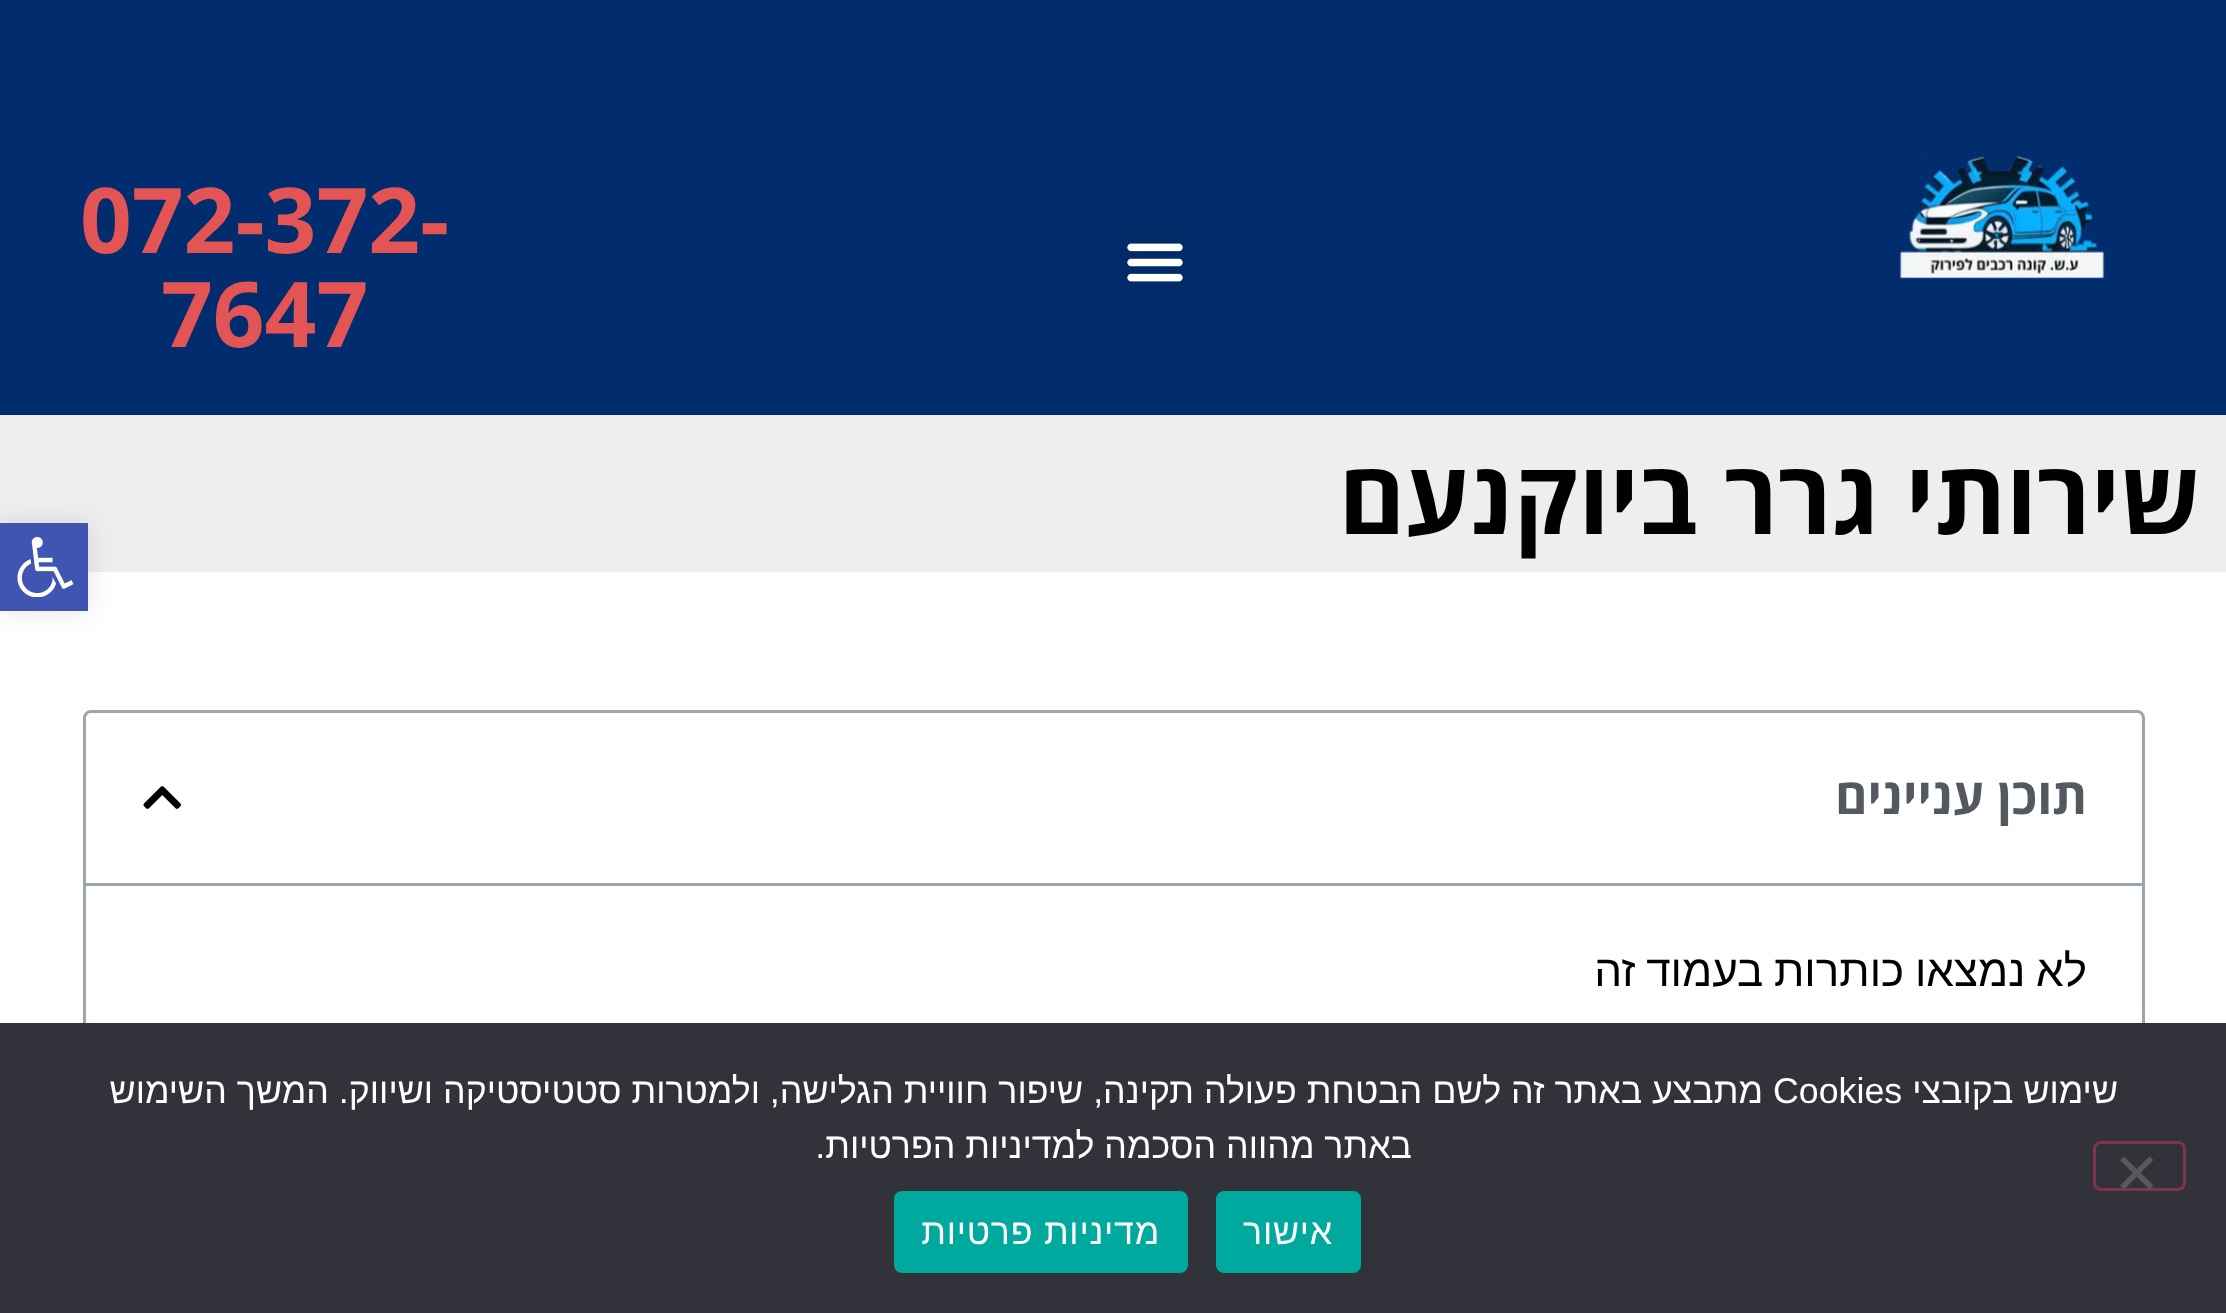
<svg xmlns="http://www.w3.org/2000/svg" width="2226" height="1313">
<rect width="100%" height="100%" fill="#fff"/>
<rect width="2226" height="415" fill="#012c6d"/>
<image x="1899" y="154" width="206" height="125" href="media/1.png"/>
<rect x="1108" y="215" width="91" height="90" rx="8" fill="#012a68"/>
<image x="1127" y="243" width="56" height="39" href="media/2.png"/>
<text x="80" y="253" style="font-family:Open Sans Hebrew;font-size:90.75px;font-weight:bold;fill:#e35454">072-372-</text>
<text x="161" y="347" style="font-family:Open Sans Hebrew;font-size:90.75px;font-weight:bold;fill:#e35454">7647</text>
<rect y="415" width="2226" height="157" fill="#eee"/>
<text x="2200" y="534" style="font-family:Open Sans Hebrew;font-size:101.75px;font-weight:bold;direction:rtl;fill:#000">שירותי גרר ביוקנעם</text>
<rect x="84.5" y="711.5" width="2059" height="351" rx="6.5" fill="none" stroke="#9da5ae" stroke-width="3"/>
<rect x="85" y="883" width="2057" height="3" fill="#9da5ae"/>
<text x="2087" y="814" style="font-family:Open Sans Hebrew;font-size:49.5px;font-weight:bold;direction:rtl;fill:#54595f">תוכן עניינים</text>
<image x="143" y="786" width="38" height="23" href="media/3.png"/>
<text x="2087" y="986" word-spacing="-1.5" style="font-family:Liberation Sans;font-size:44px;direction:rtl;fill:#000">לא נמצאו כותרות בעמוד זה</text>
<rect y="523" width="88" height="88" fill="#0000001a" filter="blur(14px)"/>
<rect y="523" width="88" height="88" fill="#4054b2"/>
<image x="17" y="537" width="57" height="60" href="media/4.png"/>
<rect y="1023" width="2226" height="290" fill="#32323a"/>
<text x="2118" y="1103" style="font-family:Liberation Sans;font-size:35.75px;direction:rtl;fill:#fff">שימוש בקובצי</text>
<text x="1773" y="1103" style="font-family:Liberation Sans;font-size:35.75px;fill:#fff">Cookies</text>
<text x="1763" y="1103" style="font-family:Liberation Sans;font-size:35.75px;direction:rtl;fill:#fff">מתבצע באתר זה לשם הבטחת פעולה תקינה, שיפור חוויית הגלישה, ולמטרות סטטיסטיקה ושיווק. המשך השימוש</text>
<text x="1412" y="1158" style="font-family:Liberation Sans;font-size:35.75px;direction:rtl;fill:#fff">באתר מהווה הסכמה למדיניות הפרטיות.</text>
<rect x="2094.5" y="1142.5" width="90" height="47" rx="6.5" fill="none" stroke="#7f3350" stroke-width="3"/>
<path d="M2149.5 1156.5l4 3.5l-29.5 29.5l-4-4z" fill="#59595d"/>
<path d="M2120 1160l4-3.5l29.5 29l-4 4z" fill="#59595d"/>
<rect x="1216" y="1191" width="145" height="82" rx="8" fill="#00a99d"/>
<text x="1333" y="1244" style="font-family:Liberation Sans;font-size:35.75px;letter-spacing:0.75px;direction:rtl;fill:#fff">אישור</text>
<rect x="894" y="1191" width="294" height="82" rx="8" fill="#00a99d"/>
<text x="1160" y="1244" style="font-family:Liberation Sans;font-size:35.75px;letter-spacing:0.75px;direction:rtl;fill:#fff">מדיניות פרטיות</text>
</svg>
